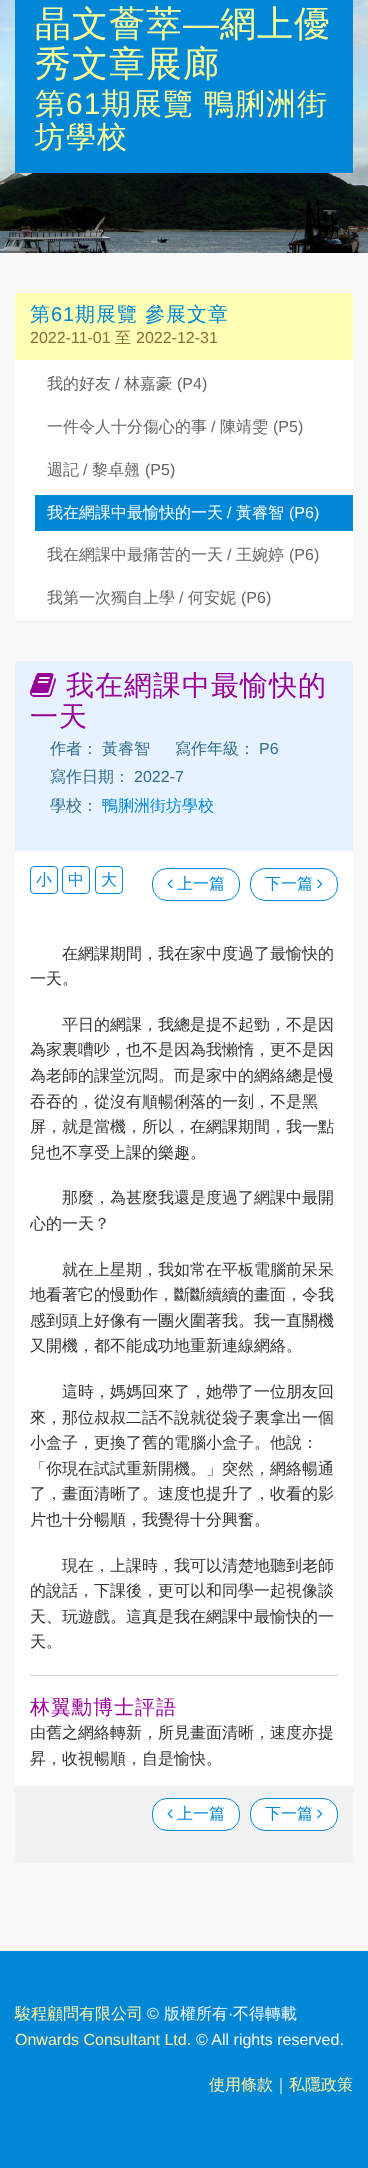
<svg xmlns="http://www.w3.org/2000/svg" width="368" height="2168">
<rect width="100%" height="100%" fill="#fff"/>
<image x="0" y="0" width="368" height="253" href="media/1.png"/>
<rect x="15" width="338" height="173" fill="#0088d6"/>
<text x="35" y="36" style="font-family:WenQuanYi Zen Hei;font-size:36px;font-weight:500;letter-spacing:1px;fill:#ff9">晶文薈萃</text>
<text x="183" y="36" style="font-family:Liberation Sans;font-size:36px;letter-spacing:1px;fill:#ff9">—</text>
<text x="220" y="36" style="font-family:WenQuanYi Zen Hei;font-size:36px;font-weight:500;letter-spacing:1px;fill:#ff9">網上優</text>
<text x="35" y="76" style="font-family:WenQuanYi Zen Hei;font-size:36px;font-weight:500;letter-spacing:1px;fill:#ff9">秀文章展廊</text>
<text x="35" y="114" style="font-family:WenQuanYi Zen Hei;font-size:30px;font-weight:500;letter-spacing:1px;fill:#ff9">第</text>
<text x="66" y="114" style="font-family:Liberation Sans;font-size:30px;letter-spacing:1px;fill:#ff9">61</text>
<text x="101" y="114" style="font-family:WenQuanYi Zen Hei;font-size:30px;font-weight:500;letter-spacing:1px;fill:#ff9">期展覽</text>
<text x="204" y="114" style="font-family:WenQuanYi Zen Hei;font-size:30px;font-weight:500;letter-spacing:1px;fill:#ff9">鴨脷洲街</text>
<text x="35" y="147" style="font-family:WenQuanYi Zen Hei;font-size:30px;font-weight:500;letter-spacing:1px;fill:#ff9">坊學校</text>
<rect y="253" width="368" height="1698" fill="#f8f8f8"/>
<rect x="15" y="294" width="338" height="328" rx="4" fill="#0000000d" filter="blur(0.5px)"/>
<rect x="15" y="293" width="338" height="328" rx="4" fill="#fff"/>
<path d="M18 293h332c1.5 0 3 1.5 3 3v64h-338v-64c0-1.5 1.5-3 3-3z" fill="#ffffb3"/>
<text x="30" y="321" style="font-family:WenQuanYi Zen Hei;font-size:20px;font-weight:500;letter-spacing:1px;fill:#0088d6">第</text>
<text x="51" y="321" style="font-family:Liberation Sans;font-size:20px;letter-spacing:1px;fill:#0088d6">61</text>
<text x="75" y="321" style="font-family:WenQuanYi Zen Hei;font-size:20px;font-weight:500;letter-spacing:1px;fill:#0088d6">期展覽</text>
<text x="145" y="321" style="font-family:WenQuanYi Zen Hei;font-size:20px;font-weight:500;letter-spacing:1px;fill:#0088d6">參展文章</text>
<text x="30" y="343" style="font-family:Liberation Sans;font-size:16px;fill:#8a6d3b">2022-11-01</text>
<text x="115" y="343" style="font-family:WenQuanYi Zen Hei;font-size:16px;font-weight:500;fill:#8a6d3b">至</text>
<text x="136" y="343" style="font-family:Liberation Sans;font-size:16px;fill:#8a6d3b">2022-12-31</text>
<text x="47" y="389" style="font-family:WenQuanYi Zen Hei;font-size:16px;font-weight:500;fill:#666">我的好友</text>
<text x="115" y="389" style="font-family:Liberation Sans;font-size:16px;fill:#666">/</text>
<text x="124" y="389" style="font-family:WenQuanYi Zen Hei;font-size:16px;font-weight:500;fill:#666">林嘉豪</text>
<text x="177" y="389" style="font-family:Liberation Sans;font-size:16px;fill:#666">(P4)</text>
<text x="47" y="432" style="font-family:WenQuanYi Zen Hei;font-size:16px;font-weight:500;fill:#666">一件令人十分傷心的事</text>
<text x="211" y="432" style="font-family:Liberation Sans;font-size:16px;fill:#666">/</text>
<text x="220" y="432" style="font-family:WenQuanYi Zen Hei;font-size:16px;font-weight:500;fill:#666">陳靖雯</text>
<text x="273" y="432" style="font-family:Liberation Sans;font-size:16px;fill:#666">(P5)</text>
<text x="47" y="475" style="font-family:WenQuanYi Zen Hei;font-size:16px;font-weight:500;fill:#666">週記</text>
<text x="83" y="475" style="font-family:Liberation Sans;font-size:16px;fill:#666">/</text>
<text x="92" y="475" style="font-family:WenQuanYi Zen Hei;font-size:16px;font-weight:500;fill:#666">黎卓翹</text>
<text x="145" y="475" style="font-family:Liberation Sans;font-size:16px;fill:#666">(P5)</text>
<rect x="35" y="495" width="318" height="36" fill="#0088d6"/>
<text x="47" y="518" style="font-family:WenQuanYi Zen Hei;font-size:16px;font-weight:500;fill:#fff">我在網課中最愉快的一天</text>
<text x="227" y="518" style="font-family:Liberation Sans;font-size:16px;fill:#fff">/</text>
<text x="236" y="518" style="font-family:WenQuanYi Zen Hei;font-size:16px;font-weight:500;fill:#fff">黃睿智</text>
<text x="289" y="518" style="font-family:Liberation Sans;font-size:16px;fill:#fff">(P6)</text>
<text x="47" y="560" style="font-family:WenQuanYi Zen Hei;font-size:16px;font-weight:500;fill:#666">我在網課中最痛苦的一天</text>
<text x="227" y="560" style="font-family:Liberation Sans;font-size:16px;fill:#666">/</text>
<text x="236" y="560" style="font-family:WenQuanYi Zen Hei;font-size:16px;font-weight:500;fill:#666">王婉婷</text>
<text x="289" y="560" style="font-family:Liberation Sans;font-size:16px;fill:#666">(P6)</text>
<text x="47" y="603" style="font-family:WenQuanYi Zen Hei;font-size:16px;font-weight:500;fill:#666">我第一次獨自上學</text>
<text x="179" y="603" style="font-family:Liberation Sans;font-size:16px;fill:#666">/</text>
<text x="188" y="603" style="font-family:WenQuanYi Zen Hei;font-size:16px;font-weight:500;fill:#666">何安妮</text>
<text x="241" y="603" style="font-family:Liberation Sans;font-size:16px;fill:#666">(P6)</text>
<rect x="15" y="662" width="338" height="1200" rx="4" fill="#0000000d" filter="blur(0.5px)"/>
<rect x="15" y="661" width="338" height="1200" rx="4" fill="#fff"/>
<path d="M18 661h332c1.5 0 3 1.5 3 3v187h-338v-187c0-1.5 1.5-3 3-3z" fill="#e6f2ff"/>
<image x="30" y="673" width="26" height="24" href="media/2.png"/>
<text x="66" y="695" style="font-family:WenQuanYi Zen Hei;font-size:28px;font-weight:500;letter-spacing:1px;fill:#909">我在網課中最愉快的</text>
<text x="30" y="726" style="font-family:WenQuanYi Zen Hei;font-size:28px;font-weight:500;letter-spacing:1px;fill:#909">一天</text>
<text x="50" y="754" style="font-family:WenQuanYi Zen Hei;font-size:16px;font-weight:500;fill:#31708f">作者：</text>
<text x="102" y="754" style="font-family:WenQuanYi Zen Hei;font-size:16px;font-weight:500;fill:#31708f">黃睿智</text>
<text x="175" y="754" style="font-family:WenQuanYi Zen Hei;font-size:16px;font-weight:500;fill:#31708f">寫作年級：</text>
<text x="259" y="754" style="font-family:Liberation Sans;font-size:16px;fill:#31708f">P6</text>
<text x="50" y="782" style="font-family:WenQuanYi Zen Hei;font-size:16px;font-weight:500;fill:#31708f">寫作日期：</text>
<text x="134" y="782" style="font-family:Liberation Sans;font-size:16px;fill:#31708f">2022-7</text>
<text x="50" y="811" style="font-family:WenQuanYi Zen Hei;font-size:16px;font-weight:500;fill:#31708f">學校：</text>
<text x="102" y="811" style="font-family:WenQuanYi Zen Hei;font-size:16px;font-weight:500;fill:#0088d6">鴨脷洲街坊學校</text>
<rect x="30.5" y="866.5" width="27" height="27" rx="3.5" fill="none" stroke="#0088d6"/>
<text x="36" y="885" style="font-family:WenQuanYi Zen Hei;font-size:16px;font-weight:500;fill:#0088d6">小</text>
<rect x="62.5" y="866.5" width="27" height="27" rx="3.5" fill="none" stroke="#0088d6"/>
<text x="68" y="885" style="font-family:WenQuanYi Zen Hei;font-size:16px;font-weight:500;fill:#0088d6">中</text>
<rect x="95.5" y="866.5" width="27" height="27" rx="3.5" fill="none" stroke="#0088d6"/>
<text x="101" y="885" style="font-family:WenQuanYi Zen Hei;font-size:16px;font-weight:500;fill:#0088d6">大</text>
<rect x="152.5" y="868.5" width="87" height="32" rx="14.5" fill="none" stroke="#0088d6"/>
<image x="167" y="879" width="6" height="10" href="media/3.png"/>
<text x="177" y="889" style="font-family:WenQuanYi Zen Hei;font-size:16px;font-weight:500;fill:#0088d6">上一篇</text>
<rect x="250.5" y="868.5" width="87" height="32" rx="14.5" fill="none" stroke="#0088d6"/>
<text x="265" y="889" style="font-family:WenQuanYi Zen Hei;font-size:16px;font-weight:500;fill:#0088d6">下一篇</text>
<image x="317" y="879" width="6" height="10" href="media/4.png"/>
<text x="62" y="959" style="font-family:WenQuanYi Zen Hei;font-size:16px;font-weight:500;fill:#333">在網課期間，我在家中度過了最愉快的</text>
<text x="30" y="984" style="font-family:WenQuanYi Zen Hei;font-size:16px;font-weight:500;fill:#333">一天。</text>
<text x="62" y="1030" style="font-family:WenQuanYi Zen Hei;font-size:16px;font-weight:500;fill:#333">平日的網課，我總是提不起勁，不是因</text>
<text x="30" y="1055" style="font-family:WenQuanYi Zen Hei;font-size:16px;font-weight:500;fill:#333">為家裏嘈吵，也不是因為我懶惰，更不是因</text>
<text x="30" y="1081" style="font-family:WenQuanYi Zen Hei;font-size:16px;font-weight:500;fill:#333">為老師的課堂沉悶。而是家中的網絡總是慢</text>
<text x="30" y="1107" style="font-family:WenQuanYi Zen Hei;font-size:16px;font-weight:500;fill:#333">吞吞的，從沒有順暢俐落的一刻，不是黑</text>
<text x="30" y="1132" style="font-family:WenQuanYi Zen Hei;font-size:16px;font-weight:500;fill:#333">屏，就是當機，所以，在網課期間，我一點</text>
<text x="30" y="1158" style="font-family:WenQuanYi Zen Hei;font-size:16px;font-weight:500;fill:#333">兒也不享受上課的樂趣。</text>
<text x="62" y="1203" style="font-family:WenQuanYi Zen Hei;font-size:16px;font-weight:500;fill:#333">那麼，為甚麼我還是度過了網課中最開</text>
<text x="30" y="1229" style="font-family:WenQuanYi Zen Hei;font-size:16px;font-weight:500;fill:#333">心的一天？</text>
<text x="62" y="1275" style="font-family:WenQuanYi Zen Hei;font-size:16px;font-weight:500;fill:#333">就在上星期，我如常在平板電腦前呆呆</text>
<text x="30" y="1300" style="font-family:WenQuanYi Zen Hei;font-size:16px;font-weight:500;fill:#333">地看著它的慢動作，斷斷續續的畫面，令我</text>
<text x="30" y="1326" style="font-family:WenQuanYi Zen Hei;font-size:16px;font-weight:500;fill:#333">感到頭上好像有一團火圍著我。我一直關機</text>
<text x="30" y="1351" style="font-family:WenQuanYi Zen Hei;font-size:16px;font-weight:500;fill:#333">又開機，都不能成功地重新連線網絡。</text>
<text x="62" y="1397" style="font-family:WenQuanYi Zen Hei;font-size:16px;font-weight:500;fill:#333">這時，媽媽回來了，她帶了一位朋友回</text>
<text x="30" y="1423" style="font-family:WenQuanYi Zen Hei;font-size:16px;font-weight:500;fill:#333">來，那位叔叔二話不說就從袋子裏拿出一個</text>
<text x="30" y="1448" style="font-family:WenQuanYi Zen Hei;font-size:16px;font-weight:500;fill:#333">小盒子，更換了舊的電腦小盒子。他說：</text>
<text x="30" y="1474" style="font-family:WenQuanYi Zen Hei;font-size:16px;font-weight:500;fill:#333">「你現在試試重新開機。」突然，網絡暢通</text>
<text x="30" y="1499" style="font-family:WenQuanYi Zen Hei;font-size:16px;font-weight:500;fill:#333">了，畫面清晰了。速度也提升了，收看的影</text>
<text x="30" y="1525" style="font-family:WenQuanYi Zen Hei;font-size:16px;font-weight:500;fill:#333">片也十分暢順，我覺得十分興奮。</text>
<text x="62" y="1571" style="font-family:WenQuanYi Zen Hei;font-size:16px;font-weight:500;fill:#333">現在，上課時，我可以清楚地聽到老師</text>
<text x="30" y="1596" style="font-family:WenQuanYi Zen Hei;font-size:16px;font-weight:500;fill:#333">的說話，下課後，更可以和同學一起視像談</text>
<text x="30" y="1622" style="font-family:WenQuanYi Zen Hei;font-size:16px;font-weight:500;fill:#333">天、玩遊戲。這真是我在網課中最愉快的一</text>
<text x="30" y="1647" style="font-family:WenQuanYi Zen Hei;font-size:16px;font-weight:500;fill:#333">天。</text>
<rect x="30" y="1675" width="308" height="1" fill="#ccc"/>
<text x="30" y="1714" style="font-family:WenQuanYi Zen Hei;font-size:20px;font-weight:500;letter-spacing:1px;fill:#909">林翼勳博士評語</text>
<text x="30" y="1738" style="font-family:WenQuanYi Zen Hei;font-size:16px;font-weight:500;fill:#333">由舊之網絡轉新，所見畫面清晰，速度亦提</text>
<text x="30" y="1764" style="font-family:WenQuanYi Zen Hei;font-size:16px;font-weight:500;fill:#333">昇，收視暢順，自是愉快。</text>
<path d="M15 1786h338v72c0 1.5-1.5 3-3 3h-332c-1.5 0-3-1.5-3-3z" fill="#f2f2f2"/>
<rect x="152.5" y="1798.5" width="87" height="32" rx="14.5" fill="#fff" stroke="#0088d6"/>
<image x="167" y="1809" width="6" height="10" href="media/3.png"/>
<text x="177" y="1819" style="font-family:WenQuanYi Zen Hei;font-size:16px;font-weight:500;fill:#0088d6">上一篇</text>
<rect x="250.5" y="1798.5" width="87" height="32" rx="14.5" fill="#fff" stroke="#0088d6"/>
<text x="265" y="1819" style="font-family:WenQuanYi Zen Hei;font-size:16px;font-weight:500;fill:#0088d6">下一篇</text>
<image x="317" y="1809" width="6" height="10" href="media/4.png"/>
<rect y="1951" width="368" height="217" fill="#0088d6"/>
<text x="15" y="2019" style="font-family:WenQuanYi Zen Hei;font-size:16px;font-weight:500;fill:#fff0a3">駿程顧問有限公司</text>
<text x="147" y="2019" style="font-family:Liberation Sans;font-size:16px;fill:#f8f8f8">©</text>
<text x="164" y="2019" style="font-family:WenQuanYi Zen Hei;font-size:16px;font-weight:500;fill:#f8f8f8">版權所有</text>
<text x="228" y="2019" style="font-family:Liberation Sans;font-size:16px;fill:#f8f8f8">·</text>
<text x="233" y="2019" style="font-family:WenQuanYi Zen Hei;font-size:16px;font-weight:500;fill:#f8f8f8">不得轉載</text>
<text x="15" y="2045" style="font-family:Liberation Sans;font-size:16px;fill:#fff0a3">Onwards Consultant Ltd.</text>
<text x="196" y="2045" style="font-family:Liberation Sans;font-size:16px;fill:#f8f8f8">© All rights reserved.</text>
<text x="209" y="2090" style="font-family:WenQuanYi Zen Hei;font-size:16px;font-weight:500;fill:#fff0a3">使用條款</text>
<text x="273" y="2090" style="font-family:WenQuanYi Zen Hei;font-size:16px;font-weight:500;fill:#f8f8f8">｜</text>
<text x="289" y="2090" style="font-family:WenQuanYi Zen Hei;font-size:16px;font-weight:500;fill:#fff0a3">私隱政策</text>
</svg>
